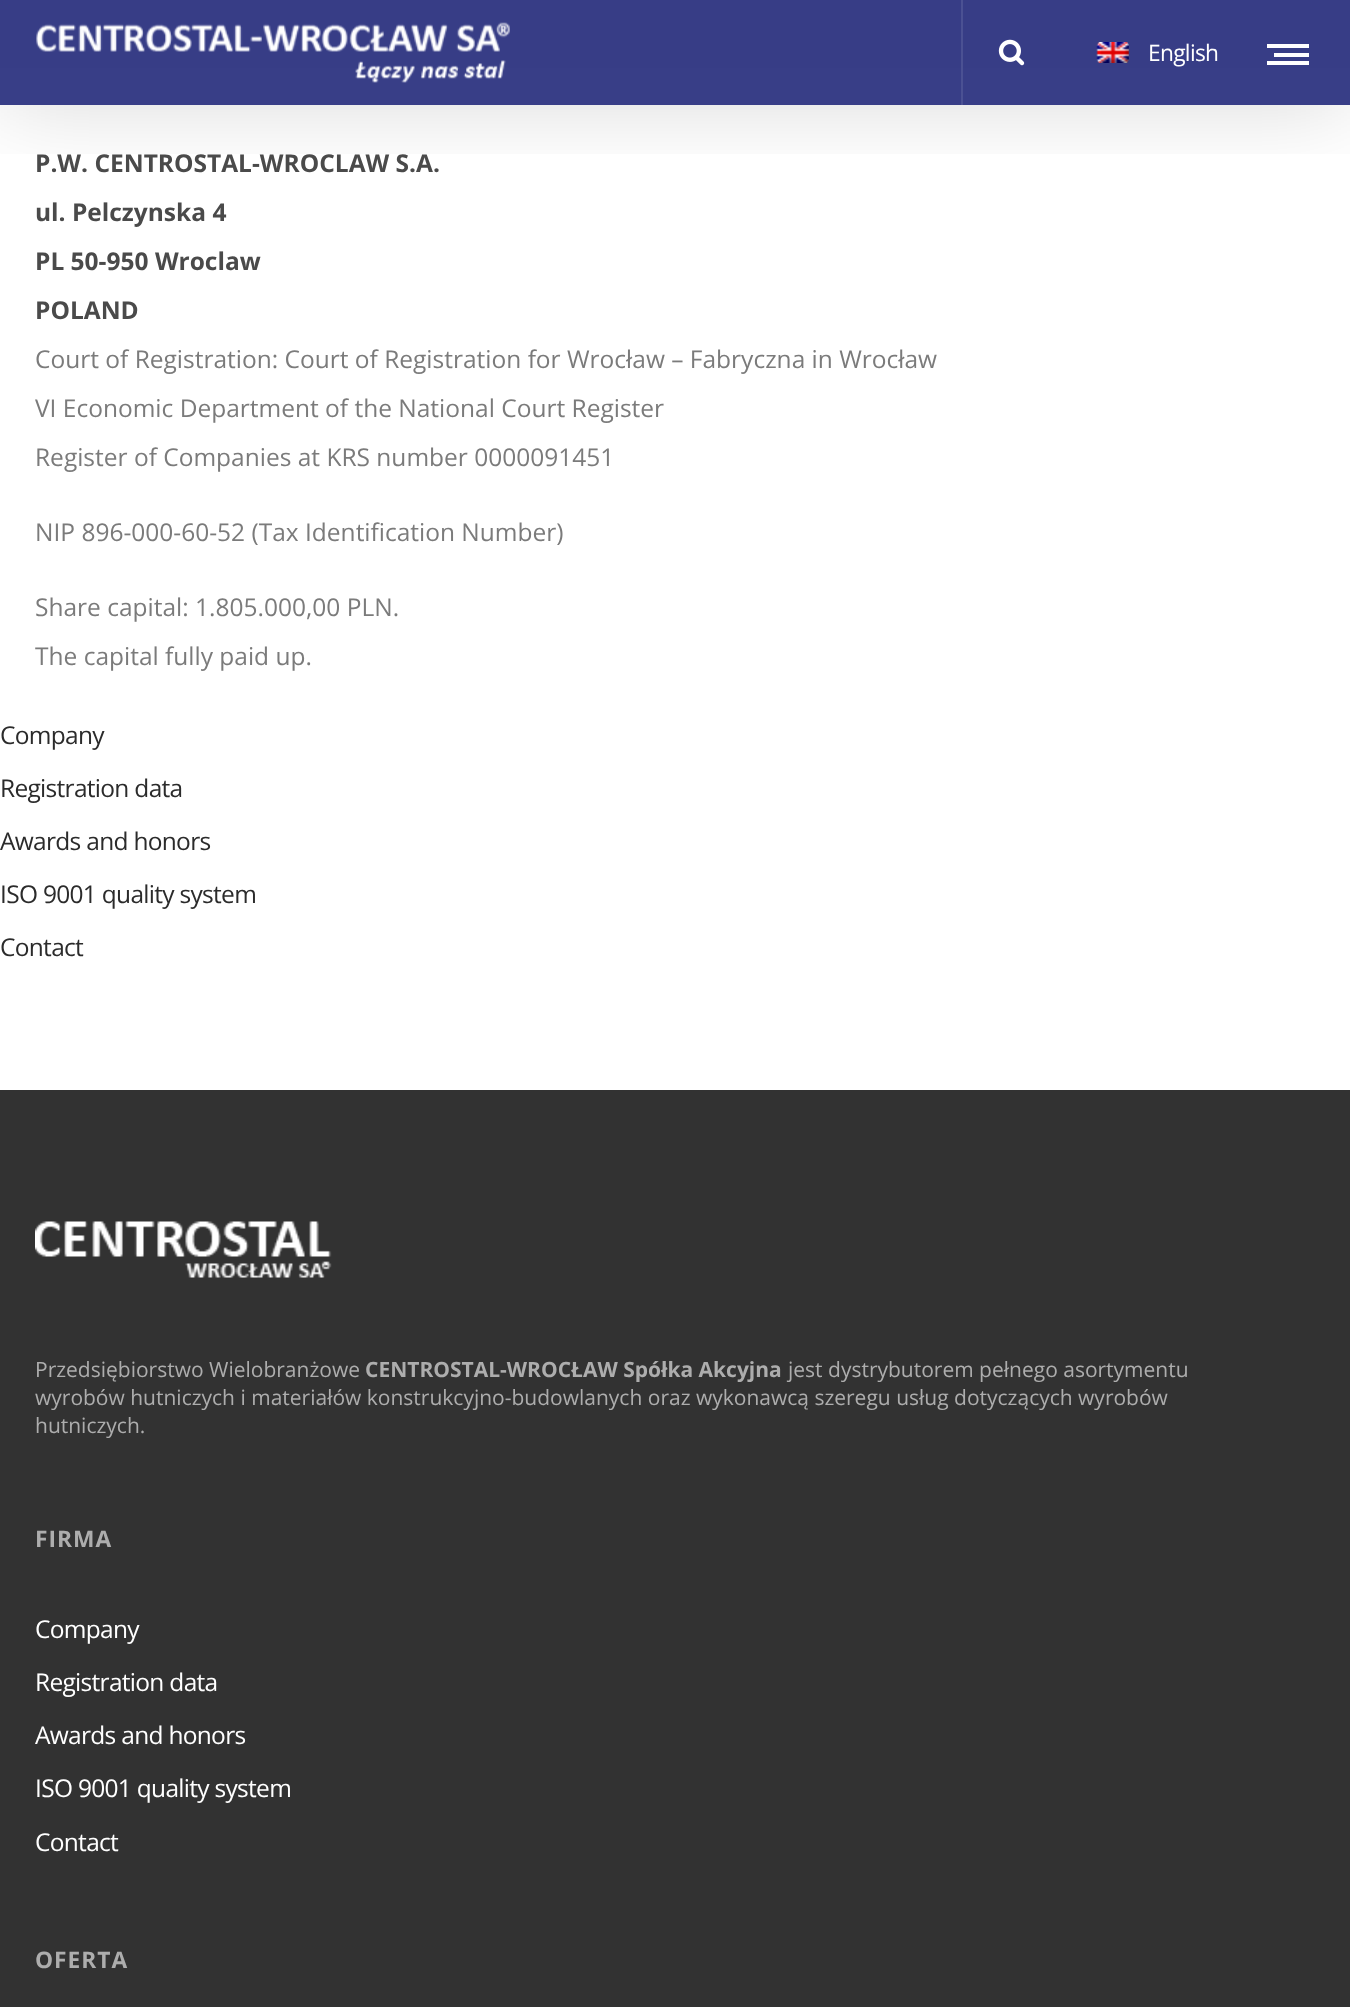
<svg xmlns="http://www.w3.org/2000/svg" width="1350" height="2007">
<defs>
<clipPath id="clip1"><rect x="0" y="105" width="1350" height="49"/></clipPath>
</defs>
<rect width="100%" height="100%" fill="#fff"/>
<rect y="68" width="1350" height="37" fill="#383e87"/>
<rect width="1350" height="68" fill="#373d86"/>
<g clip-path="url(#clip1)">
<rect width="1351" height="105" fill="#00000026" filter="blur(44px)"/>
</g>
<image x="36" y="22" width="474" height="61" href="media/1.png"/>
<rect x="961" width="2" height="105" fill="#4b5193"/>
<image x="998" y="39" width="27" height="27" href="media/2.png"/>
<image x="1096" y="42" width="33" height="21" href="media/3.png"/>
<text x="1148" y="61" style="font-family:Open Sans;font-size:22.75px;letter-spacing:-0.7px;fill:#fff">English</text>
<rect x="1267" y="44" width="42" height="4" fill="#fff"/>
<rect x="1274" y="53" width="35" height="4" fill="#fff"/>
<rect x="1267" y="61" width="42" height="4" fill="#fff"/>
<text x="35" y="172" style="font-family:Open Sans;font-size:24.5px;font-weight:bold;fill:#4a4a4a">P.W. CENTROSTAL-WROCLAW S.A.</text>
<text x="35" y="221" style="font-family:Open Sans;font-size:24.5px;font-weight:bold;fill:#4a4a4a">ul. Pelczynska 4</text>
<text x="35" y="270" style="font-family:Open Sans;font-size:24.5px;font-weight:bold;fill:#4a4a4a">PL 50-950 Wroclaw</text>
<text x="35" y="319" style="font-family:Open Sans;font-size:24.5px;font-weight:bold;fill:#4a4a4a">POLAND</text>
<text x="35" y="368" style="font-family:Open Sans;font-size:24.5px;fill:#7b7b7b">Court of Registration: Court of Registration for Wrocław – Fabryczna in Wrocław</text>
<text x="35" y="417" style="font-family:Open Sans;font-size:24.5px;fill:#7b7b7b">VI Economic Department of the National Court Register</text>
<text x="35" y="466" style="font-family:Open Sans;font-size:24.5px;fill:#7b7b7b">Register of Companies at KRS number 0000091451</text>
<text x="35" y="541" style="font-family:Open Sans;font-size:24.5px;fill:#7b7b7b">NIP 896-000-60-52 (Tax Identification Number)</text>
<text x="35" y="616" style="font-family:Open Sans;font-size:24.5px;fill:#7b7b7b">Share capital: 1.805.000,00 PLN.</text>
<text x="35" y="665" style="font-family:Open Sans;font-size:24.5px;fill:#7b7b7b">The capital fully paid up.</text>
<text x="0" y="744" style="font-family:Open Sans;font-size:24.5px;letter-spacing:-0.7px;fill:#2b2b2b">Company</text>
<text x="0" y="797" style="font-family:Open Sans;font-size:24.5px;letter-spacing:-0.7px;fill:#2b2b2b">Registration data</text>
<text x="0" y="850" style="font-family:Open Sans;font-size:24.5px;letter-spacing:-0.7px;fill:#2b2b2b">Awards and honors</text>
<text x="0" y="903" style="font-family:Open Sans;font-size:24.5px;letter-spacing:-0.7px;fill:#2b2b2b">ISO 9001 quality system</text>
<text x="0" y="956" style="font-family:Open Sans;font-size:24.5px;letter-spacing:-0.7px;fill:#2b2b2b">Contact</text>
<rect y="1090" width="1350" height="917" fill="#323232"/>
<image x="35" y="1221" width="297" height="57" href="media/4.png"/>
<text x="35" y="1377" style="font-family:Open Sans;font-size:21px;fill:#adadad">Przedsiębiorstwo Wielobranżowe</text>
<text x="365" y="1377" style="font-family:Open Sans;font-size:21px;font-weight:bold;fill:#adadad">CENTROSTAL-WROCŁAW Spółka Akcyjna</text>
<text x="788" y="1377" style="font-family:Open Sans;font-size:21px;fill:#adadad">jest dystrybutorem pełnego asortymentu</text>
<text x="35" y="1405" style="font-family:Open Sans;font-size:21px;fill:#adadad">wyrobów hutniczych i materiałów konstrukcyjno-budowlanych oraz wykonawcą szeregu usług dotyczących wyrobów</text>
<text x="35" y="1433" style="font-family:Open Sans;font-size:21px;fill:#adadad">hutniczych.</text>
<text x="35" y="1547" style="font-family:Open Sans;font-size:22.75px;font-weight:bold;letter-spacing:1px;fill:#adadad">FIRMA</text>
<text x="35" y="1638" style="font-family:Open Sans;font-size:24.5px;letter-spacing:-0.7px;fill:#fff">Company</text>
<text x="35" y="1691" style="font-family:Open Sans;font-size:24.5px;letter-spacing:-0.7px;fill:#fff">Registration data</text>
<text x="35" y="1744" style="font-family:Open Sans;font-size:24.5px;letter-spacing:-0.7px;fill:#fff">Awards and honors</text>
<text x="35" y="1797" style="font-family:Open Sans;font-size:24.5px;letter-spacing:-0.7px;fill:#fff">ISO 9001 quality system</text>
<text x="35" y="1851" style="font-family:Open Sans;font-size:24.5px;letter-spacing:-0.7px;fill:#fff">Contact</text>
<text x="35" y="1968" style="font-family:Open Sans;font-size:22.75px;font-weight:bold;letter-spacing:1px;fill:#adadad">OFERTA</text>
</svg>
